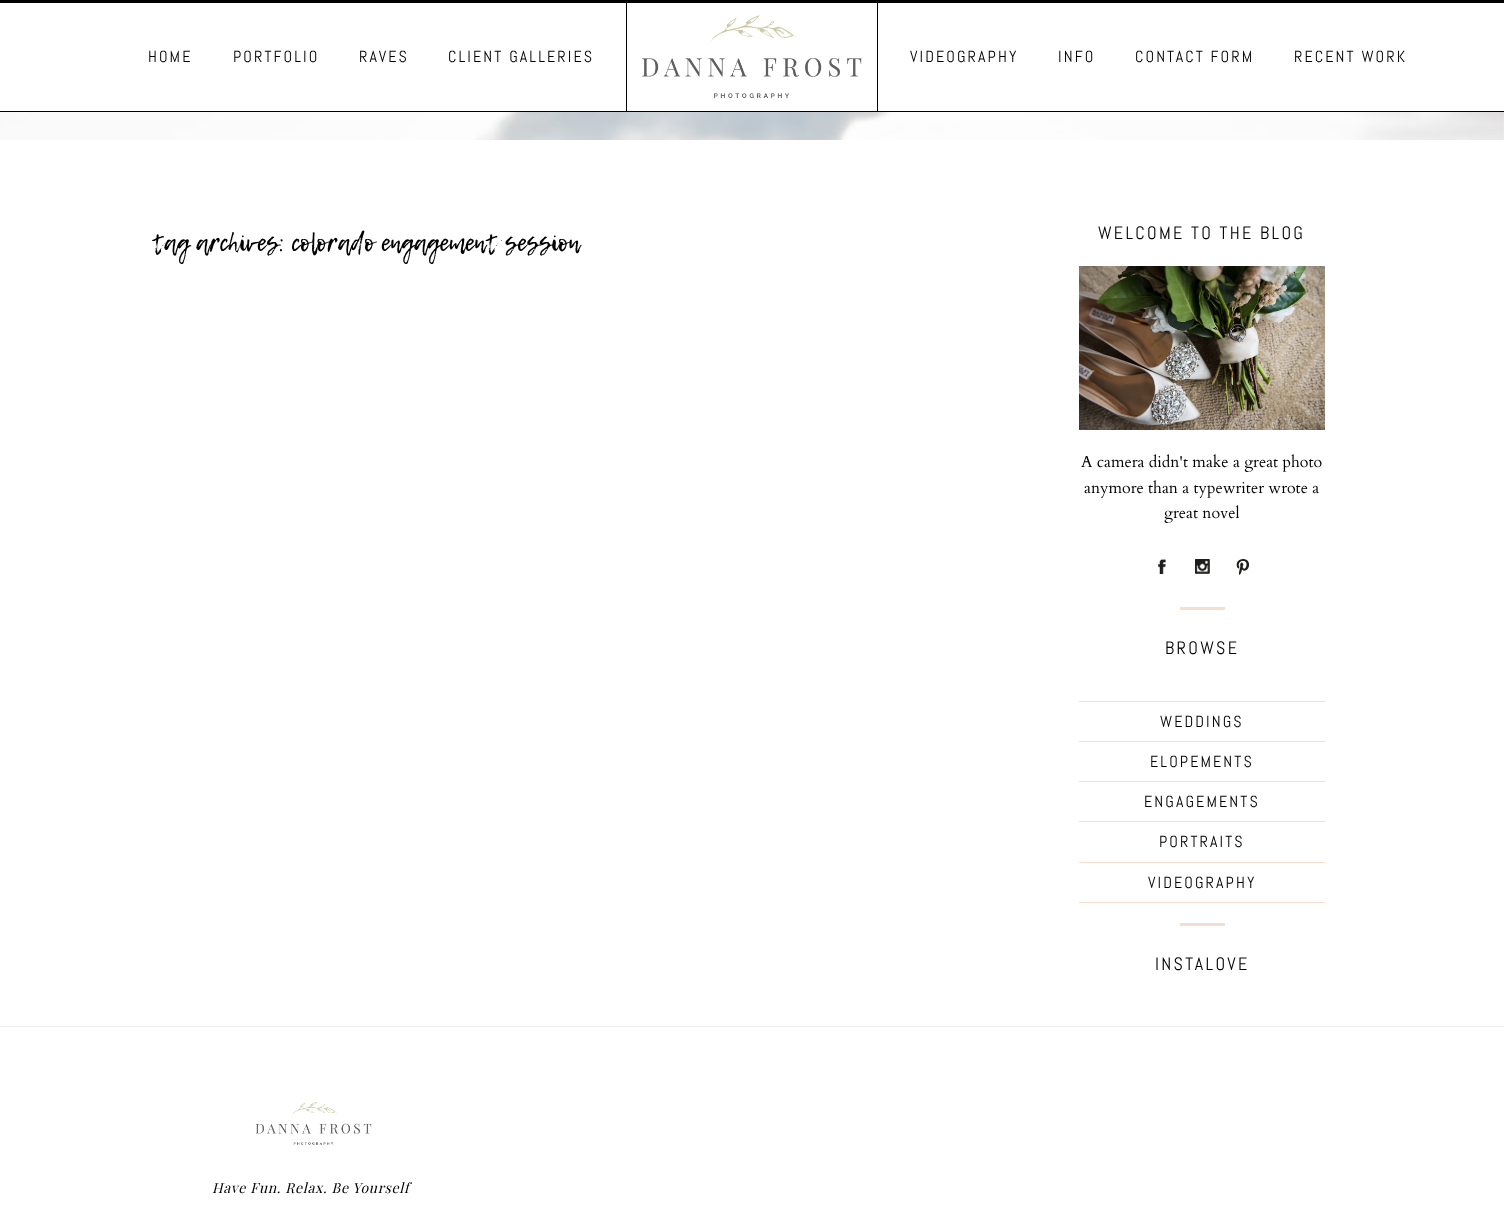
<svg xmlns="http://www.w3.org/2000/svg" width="1504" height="1222">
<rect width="100%" height="100%" fill="#fff"/>
<rect width="1504" height="3" fill="#000"/>
<rect y="111" width="1504" height="1" fill="#000"/>
<rect x="626" y="3" width="1" height="108" fill="#000"/>
<text x="148" y="62" style="font-family:Abel;font-size:16px;letter-spacing:2.1px;fill:#000">HOME</text>
<text x="233" y="62" style="font-family:Abel;font-size:16px;letter-spacing:2.1px;fill:#000">PORTFOLIO</text>
<text x="359" y="62" style="font-family:Abel;font-size:16px;letter-spacing:2.1px;fill:#000">RAVES</text>
<text x="448" y="62" style="font-family:Abel;font-size:16px;letter-spacing:2.1px;fill:#000">CLIENT GALLERIES</text>
<image x="642" y="14" width="220" height="85" href="media/1.png"/>
<rect x="877" y="3" width="1" height="108" fill="#000"/>
<text x="910" y="62" style="font-family:Abel;font-size:16px;letter-spacing:2.1px;fill:#000">VIDEOGRAPHY</text>
<text x="1058" y="62" style="font-family:Abel;font-size:16px;letter-spacing:2.1px;fill:#000">INFO</text>
<text x="1135" y="62" style="font-family:Abel;font-size:16px;letter-spacing:2.1px;fill:#000">CONTACT FORM</text>
<text x="1294" y="62" style="font-family:Abel;font-size:16px;letter-spacing:2.1px;fill:#000">RECENT WORK</text>
<image x="0" y="112" width="1504" height="28" href="media/2.png"/>
<text x="152" y="251" style="font-family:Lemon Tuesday;font-size:24px;fill:#000">tag archives: colorado engagement session</text>
<text x="1098" y="239" style="font-family:Abel;font-size:18px;letter-spacing:2.3px;fill:#000">WELCOME TO THE BLOG</text>
<image x="1079" y="266" width="246" height="164" href="media/3.png"/>
<text x="1081" y="467" style="font-family:Cardo;font-size:16px;fill:#000">A camera didn't make a great photo</text>
<text x="1084" y="493" style="font-family:Cardo;font-size:16px;fill:#000">anymore than a typewriter wrote a</text>
<text x="1164" y="518" style="font-family:Cardo;font-size:16px;fill:#000">great novel</text>
<image x="1158" y="559" width="8" height="15" href="media/4.png"/>
<image x="1195" y="559" width="15" height="15" href="media/5.png"/>
<image x="1236" y="559" width="13" height="16" href="media/6.png"/>
<rect x="1180" y="607" width="45" height="3" fill="#f6decf"/>
<text x="1165" y="654" style="font-family:Abel;font-size:18px;letter-spacing:2.3px;fill:#000">BROWSE</text>
<rect x="1079" y="701" width="246" height="1" fill="#f6decf"/>
<rect x="1079" y="741" width="246" height="1" fill="#f6decf"/>
<text x="1160" y="727" style="font-family:Abel;font-size:16px;letter-spacing:2.1px;fill:#000">WEDDINGS</text>
<rect x="1079" y="781" width="246" height="1" fill="#f6decf"/>
<text x="1150" y="767" style="font-family:Abel;font-size:16px;letter-spacing:2.1px;fill:#000">ELOPEMENTS</text>
<rect x="1079" y="821" width="246" height="1" fill="#f6decf"/>
<text x="1144" y="807" style="font-family:Abel;font-size:16px;letter-spacing:2.1px;fill:#000">ENGAGEMENTS</text>
<rect x="1079" y="862" width="246" height="1" fill="#f6decf"/>
<text x="1159" y="847" style="font-family:Abel;font-size:16px;letter-spacing:2.1px;fill:#000">PORTRAITS</text>
<rect x="1079" y="902" width="246" height="1" fill="#f6decf"/>
<text x="1148" y="888" style="font-family:Abel;font-size:16px;letter-spacing:2.1px;fill:#000">VIDEOGRAPHY</text>
<rect x="1180" y="923" width="45" height="3" fill="#f6decf"/>
<text x="1155" y="970" style="font-family:Abel;font-size:18px;letter-spacing:2.3px;fill:#000">INSTALOVE</text>
<rect y="1026" width="1504" height="1" fill="#ededed"/>
<image x="255" y="1102" width="117" height="43" href="media/7.png"/>
<text x="212" y="1193" style="font-family:Playfair Display;font-size:14px;font-style:italic;letter-spacing:0.7px;fill:#000">Have Fun. Relax. Be Yourself</text>
</svg>
